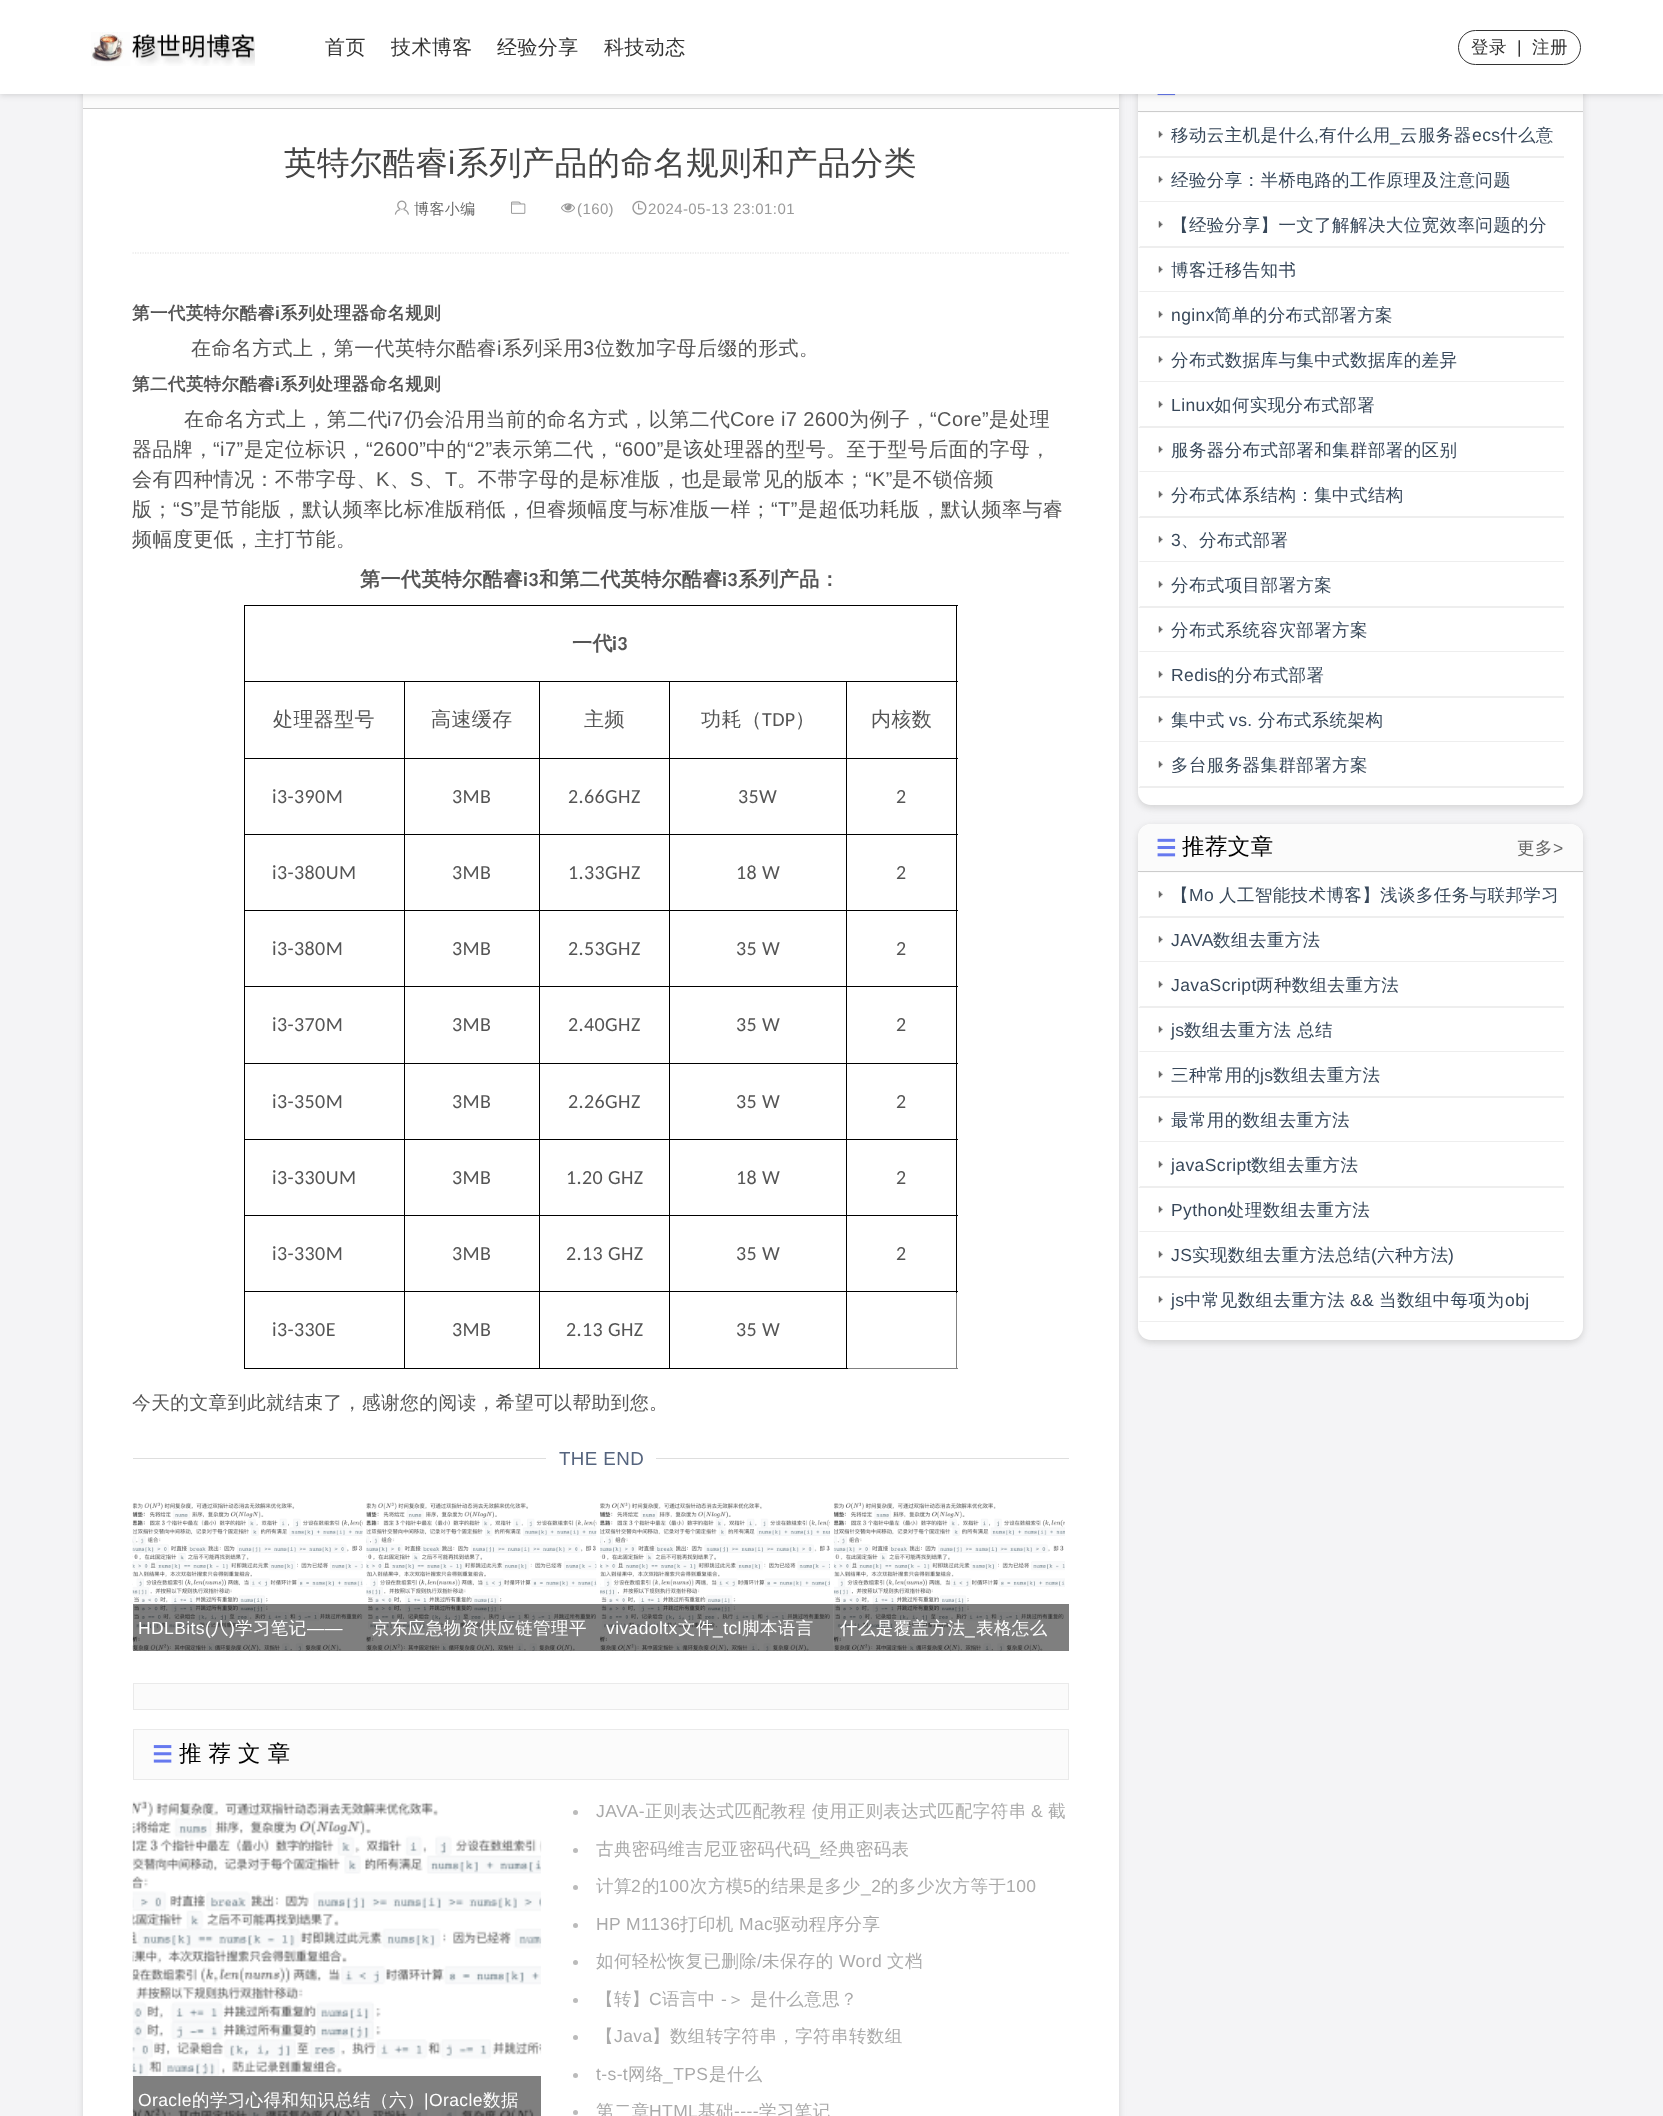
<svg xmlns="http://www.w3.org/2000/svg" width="1663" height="2116">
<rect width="100%" height="100%" fill="#f4f4f6"/>
<rect x="83" y="65" width="1036" height="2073" rx="13" fill="#bbbbbb8f" filter="blur(3px)"/>
<rect x="83" y="94" width="1036" height="14" fill="#fbfbfb"/>
<rect x="1138" y="65" width="445" height="743" rx="13" fill="#bbbbbb8f" filter="blur(3px)"/>
<rect x="1138" y="63" width="445" height="742" rx="13" fill="#fff"/>
<rect x="1138" y="94" width="445" height="19" fill="#fbfbfb"/>
<image x="1157" y="94" width="19" height="2" href="media/12.png"/>
<rect y="1" width="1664" height="94" fill="#00000026" filter="blur(3px)"/>
<rect width="1663" height="94" fill="#fff"/>
<image x="91" y="32" width="164" height="34" href="media/1.png"/>
<text x="325" y="54" style="font-family:WenQuanYi Zen Hei;font-size:20px;font-weight:500;letter-spacing:0.4px;fill:#333">首页</text>
<text x="391" y="54" style="font-family:WenQuanYi Zen Hei;font-size:20px;font-weight:500;letter-spacing:0.4px;fill:#333">技术博客</text>
<text x="497" y="54" style="font-family:WenQuanYi Zen Hei;font-size:20px;font-weight:500;letter-spacing:0.4px;fill:#333">经验分享</text>
<text x="604" y="54" style="font-family:WenQuanYi Zen Hei;font-size:20px;font-weight:500;letter-spacing:0.4px;fill:#333">科技动态</text>
<rect x="1458.5" y="30.5" width="122" height="34" rx="17" fill="none" stroke="#333"/>
<text x="1471" y="53" style="font-family:WenQuanYi Zen Hei;font-size:17.5px;font-weight:500;letter-spacing:0.4px;fill:#333">登录</text>
<text x="1517" y="53" style="font-family:Liberation Sans;font-size:17.5px;letter-spacing:0.4px;fill:#333">|</text>
<text x="1532" y="53" style="font-family:WenQuanYi Zen Hei;font-size:17.5px;font-weight:500;letter-spacing:0.4px;fill:#333">注册</text>
<rect x="83" y="109" width="1036" height="2007" fill="#fff"/>
<rect x="83" y="108" width="1036" height="1" fill="#ccc"/>
<path d="M132.5 253h936.5" fill="none" stroke="#dedede" stroke-width="1.2" stroke-dasharray="1.25 1.25"/>
<text x="284" y="174" style="font-family:WenQuanYi Zen Hei;font-size:32.5px;font-weight:500;letter-spacing:0.4px;fill:#454545">英特尔酷睿</text>
<text x="448" y="174" style="font-family:Liberation Sans;font-size:32.5px;letter-spacing:0.4px;fill:#454545">i</text>
<text x="456" y="174" style="font-family:WenQuanYi Zen Hei;font-size:32.5px;font-weight:500;letter-spacing:0.4px;fill:#454545">系列产品的命名规则和产品分类</text>
<image x="394" y="200" width="15" height="15" href="media/2.png"/>
<text x="414" y="214" style="font-family:WenQuanYi Zen Hei;font-size:15px;font-weight:500;letter-spacing:0.4px;fill:#666">博客小编</text>
<image x="511" y="201" width="15" height="13" href="media/3.png"/>
<image x="561" y="203" width="14" height="10" href="media/4.png"/>
<text x="577" y="214" style="font-family:Liberation Sans;font-size:15px;letter-spacing:0.4px;fill:#999">(160)</text>
<image x="632" y="200" width="15" height="15" href="media/5.png"/>
<text x="648" y="214" style="font-family:Liberation Sans;font-size:15px;letter-spacing:0.4px;fill:#999">2024-05-13 23:01:01</text>
<text x="132" y="319" style="font-family:WenQuanYi Zen Hei;font-size:17.5px;font-weight:bold;letter-spacing:0.4px;fill:#555">第一代英特尔酷睿</text>
<text x="275" y="319" style="font-family:Liberation Sans;font-size:17.5px;font-weight:bold;letter-spacing:0.4px;fill:#555">i</text>
<text x="280" y="319" style="font-family:WenQuanYi Zen Hei;font-size:17.5px;font-weight:bold;letter-spacing:0.4px;fill:#555">系列处理器命名规则</text>
<text x="191" y="355" style="font-family:WenQuanYi Zen Hei;font-size:20px;font-weight:500;letter-spacing:0.4px;fill:#555">在命名方式上，第一代英特尔酷睿</text>
<text x="497" y="355" style="font-family:Liberation Sans;font-size:20px;letter-spacing:0.4px;fill:#555">i</text>
<text x="502" y="355" style="font-family:WenQuanYi Zen Hei;font-size:20px;font-weight:500;letter-spacing:0.4px;fill:#555">系列采用</text>
<text x="583" y="355" style="font-family:Liberation Sans;font-size:20px;letter-spacing:0.4px;fill:#555">3</text>
<text x="595" y="355" style="font-family:WenQuanYi Zen Hei;font-size:20px;font-weight:500;letter-spacing:0.4px;fill:#555">位数加字母后缀的形式。</text>
<text x="132" y="390" style="font-family:WenQuanYi Zen Hei;font-size:17.5px;font-weight:bold;letter-spacing:0.4px;fill:#555">第二代英特尔酷睿</text>
<text x="275" y="390" style="font-family:Liberation Sans;font-size:17.5px;font-weight:bold;letter-spacing:0.4px;fill:#555">i</text>
<text x="280" y="390" style="font-family:WenQuanYi Zen Hei;font-size:17.5px;font-weight:bold;letter-spacing:0.4px;fill:#555">系列处理器命名规则</text>
<text x="184" y="426" style="font-family:WenQuanYi Zen Hei;font-size:20px;font-weight:500;letter-spacing:0.4px;fill:#555">在命名方式上，第二代</text>
<text x="387" y="426" style="font-family:Liberation Sans;font-size:20px;letter-spacing:0.4px;fill:#555">i7</text>
<text x="404" y="426" style="font-family:WenQuanYi Zen Hei;font-size:20px;font-weight:500;letter-spacing:0.4px;fill:#555">仍会沿用当前的命名方式，以第二代</text>
<text x="730" y="426" style="font-family:Liberation Sans;font-size:20px;letter-spacing:0.4px;fill:#555">Core i7 2600</text>
<text x="849" y="426" style="font-family:WenQuanYi Zen Hei;font-size:20px;font-weight:500;letter-spacing:0.4px;fill:#555">为例子，</text>
<text x="930" y="426" style="font-family:Liberation Sans;font-size:20px;letter-spacing:0.4px;fill:#555">“Core”</text>
<text x="989" y="426" style="font-family:WenQuanYi Zen Hei;font-size:20px;font-weight:500;letter-spacing:0.4px;fill:#555">是处理</text>
<text x="132" y="456" style="font-family:WenQuanYi Zen Hei;font-size:20px;font-weight:500;letter-spacing:0.4px;fill:#555">器品牌，</text>
<text x="213" y="456" style="font-family:Liberation Sans;font-size:20px;letter-spacing:0.4px;fill:#555">“i7”</text>
<text x="244" y="456" style="font-family:WenQuanYi Zen Hei;font-size:20px;font-weight:500;letter-spacing:0.4px;fill:#555">是定位标识，</text>
<text x="366" y="456" style="font-family:Liberation Sans;font-size:20px;letter-spacing:0.4px;fill:#555">“2600”</text>
<text x="426" y="456" style="font-family:WenQuanYi Zen Hei;font-size:20px;font-weight:500;letter-spacing:0.4px;fill:#555">中的</text>
<text x="467" y="456" style="font-family:Liberation Sans;font-size:20px;letter-spacing:0.4px;fill:#555">“2”</text>
<text x="492" y="456" style="font-family:WenQuanYi Zen Hei;font-size:20px;font-weight:500;letter-spacing:0.4px;fill:#555">表示第二代，</text>
<text x="615" y="456" style="font-family:Liberation Sans;font-size:20px;letter-spacing:0.4px;fill:#555">“600”</text>
<text x="663" y="456" style="font-family:WenQuanYi Zen Hei;font-size:20px;font-weight:500;letter-spacing:0.4px;fill:#555">是该处理器的型号。至于型号后面的字母，</text>
<text x="132" y="486" style="font-family:WenQuanYi Zen Hei;font-size:20px;font-weight:500;letter-spacing:0.4px;fill:#555">会有四种情况：不带字母、</text>
<text x="376" y="486" style="font-family:Liberation Sans;font-size:20px;letter-spacing:0.4px;fill:#555">K</text>
<text x="410" y="486" style="font-family:Liberation Sans;font-size:20px;letter-spacing:0.4px;fill:#555">S</text>
<text x="445" y="486" style="font-family:Liberation Sans;font-size:20px;letter-spacing:0.4px;fill:#555">T</text>
<text x="457" y="486" style="font-family:WenQuanYi Zen Hei;font-size:20px;font-weight:500;letter-spacing:0.4px;fill:#555">。不带字母的是标准版，也是最常见的版本；</text>
<text x="865" y="486" style="font-family:Liberation Sans;font-size:20px;letter-spacing:0.4px;fill:#555">“K”</text>
<text x="892" y="486" style="font-family:WenQuanYi Zen Hei;font-size:20px;font-weight:500;letter-spacing:0.4px;fill:#555">是不锁倍频</text>
<text x="390" y="486" style="font-family:WenQuanYi Zen Hei;font-size:20px;font-weight:500;letter-spacing:0.4px;fill:#555">、</text>
<text x="424" y="486" style="font-family:WenQuanYi Zen Hei;font-size:20px;font-weight:500;letter-spacing:0.4px;fill:#555">、</text>
<text x="132" y="516" style="font-family:WenQuanYi Zen Hei;font-size:20px;font-weight:500;letter-spacing:0.4px;fill:#555">版；</text>
<text x="173" y="516" style="font-family:Liberation Sans;font-size:20px;letter-spacing:0.4px;fill:#555">“S”</text>
<text x="200" y="516" style="font-family:WenQuanYi Zen Hei;font-size:20px;font-weight:500;letter-spacing:0.4px;fill:#555">是节能版，默认频率比标准版稍低，但睿频幅度与标准版一样；</text>
<text x="771" y="516" style="font-family:Liberation Sans;font-size:20px;letter-spacing:0.4px;fill:#555">“T”</text>
<text x="798" y="516" style="font-family:WenQuanYi Zen Hei;font-size:20px;font-weight:500;letter-spacing:0.4px;fill:#555">是超低功耗版，默认频率与睿</text>
<text x="132" y="546" style="font-family:WenQuanYi Zen Hei;font-size:20px;font-weight:500;letter-spacing:0.4px;fill:#555">频幅度更低，主打节能。</text>
<text x="360" y="586" style="font-family:WenQuanYi Zen Hei;font-size:20px;font-weight:bold;letter-spacing:0.4px;fill:#555">第一代英特尔酷睿</text>
<text x="523" y="586" style="font-family:Carlito;font-size:20px;font-weight:bold;letter-spacing:0.4px;fill:#555">i3</text>
<text x="539" y="586" style="font-family:WenQuanYi Zen Hei;font-size:20px;font-weight:bold;letter-spacing:0.4px;fill:#555">和第二代英特尔酷睿</text>
<text x="722" y="586" style="font-family:Carlito;font-size:20px;font-weight:bold;letter-spacing:0.4px;fill:#555">i3</text>
<text x="738" y="586" style="font-family:WenQuanYi Zen Hei;font-size:20px;font-weight:bold;letter-spacing:0.4px;fill:#555">系列产品：</text>
<rect x="956" y="1293" width="1" height="76" fill="#808080"/>
<rect x="848" y="1368" width="110" height="1" fill="#808080"/>
<rect x="244" y="605" width="714" height="1" fill="#000"/>
<rect x="846" y="681" width="112" height="1" fill="#000"/>
<rect x="846" y="758" width="112" height="1" fill="#000"/>
<rect x="846" y="834" width="112" height="1" fill="#000"/>
<rect x="846" y="910" width="112" height="1" fill="#000"/>
<rect x="846" y="986" width="112" height="1" fill="#000"/>
<rect x="846" y="1063" width="112" height="1" fill="#000"/>
<rect x="846" y="1139" width="112" height="1" fill="#000"/>
<rect x="846" y="1215" width="112" height="1" fill="#000"/>
<rect x="956" y="1215" width="1" height="78" fill="#000"/>
<rect x="956" y="1139" width="1" height="77" fill="#000"/>
<rect x="956" y="1063" width="1" height="77" fill="#000"/>
<rect x="956" y="986" width="1" height="78" fill="#000"/>
<rect x="956" y="910" width="1" height="78" fill="#000"/>
<rect x="956" y="834" width="1" height="77" fill="#000"/>
<rect x="956" y="758" width="1" height="77" fill="#000"/>
<rect x="956" y="681" width="1" height="78" fill="#000"/>
<rect x="956" y="605" width="1" height="78" fill="#000"/>
<rect x="669" y="1291" width="179" height="1" fill="#000"/>
<rect x="846" y="1291" width="1" height="78" fill="#000"/>
<rect x="846" y="1291" width="112" height="1" fill="#000"/>
<rect x="846" y="1215" width="1" height="78" fill="#000"/>
<rect x="669" y="1215" width="179" height="1" fill="#000"/>
<rect x="846" y="1139" width="1" height="77" fill="#000"/>
<rect x="669" y="1139" width="179" height="1" fill="#000"/>
<rect x="846" y="1063" width="1" height="77" fill="#000"/>
<rect x="669" y="1063" width="179" height="1" fill="#000"/>
<rect x="846" y="986" width="1" height="78" fill="#000"/>
<rect x="669" y="986" width="179" height="1" fill="#000"/>
<rect x="846" y="910" width="1" height="78" fill="#000"/>
<rect x="669" y="910" width="179" height="1" fill="#000"/>
<rect x="846" y="834" width="1" height="77" fill="#000"/>
<rect x="669" y="834" width="179" height="1" fill="#000"/>
<rect x="846" y="758" width="1" height="77" fill="#000"/>
<rect x="669" y="758" width="179" height="1" fill="#000"/>
<rect x="846" y="681" width="1" height="78" fill="#000"/>
<rect x="669" y="681" width="179" height="1" fill="#000"/>
<rect x="669" y="1368" width="179" height="1" fill="#000"/>
<rect x="669" y="1291" width="1" height="78" fill="#000"/>
<rect x="539" y="1291" width="131" height="1" fill="#000"/>
<rect x="669" y="1215" width="1" height="78" fill="#000"/>
<rect x="539" y="1215" width="131" height="1" fill="#000"/>
<rect x="669" y="1139" width="1" height="77" fill="#000"/>
<rect x="539" y="1139" width="131" height="1" fill="#000"/>
<rect x="669" y="1063" width="1" height="77" fill="#000"/>
<rect x="539" y="1063" width="131" height="1" fill="#000"/>
<rect x="669" y="986" width="1" height="78" fill="#000"/>
<rect x="539" y="986" width="131" height="1" fill="#000"/>
<rect x="669" y="910" width="1" height="78" fill="#000"/>
<rect x="539" y="910" width="131" height="1" fill="#000"/>
<rect x="669" y="834" width="1" height="77" fill="#000"/>
<rect x="539" y="834" width="131" height="1" fill="#000"/>
<rect x="669" y="758" width="1" height="77" fill="#000"/>
<rect x="539" y="758" width="131" height="1" fill="#000"/>
<rect x="669" y="681" width="1" height="78" fill="#000"/>
<rect x="539" y="681" width="131" height="1" fill="#000"/>
<rect x="539" y="1368" width="131" height="1" fill="#000"/>
<rect x="539" y="1291" width="1" height="78" fill="#000"/>
<rect x="404" y="1291" width="136" height="1" fill="#000"/>
<rect x="539" y="1215" width="1" height="78" fill="#000"/>
<rect x="404" y="1215" width="136" height="1" fill="#000"/>
<rect x="539" y="1139" width="1" height="77" fill="#000"/>
<rect x="404" y="1139" width="136" height="1" fill="#000"/>
<rect x="539" y="1063" width="1" height="77" fill="#000"/>
<rect x="404" y="1063" width="136" height="1" fill="#000"/>
<rect x="539" y="986" width="1" height="78" fill="#000"/>
<rect x="404" y="986" width="136" height="1" fill="#000"/>
<rect x="539" y="910" width="1" height="78" fill="#000"/>
<rect x="404" y="910" width="136" height="1" fill="#000"/>
<rect x="539" y="834" width="1" height="77" fill="#000"/>
<rect x="404" y="834" width="136" height="1" fill="#000"/>
<rect x="539" y="758" width="1" height="77" fill="#000"/>
<rect x="404" y="758" width="136" height="1" fill="#000"/>
<rect x="539" y="681" width="1" height="78" fill="#000"/>
<rect x="404" y="681" width="136" height="1" fill="#000"/>
<rect x="404" y="1368" width="136" height="1" fill="#000"/>
<rect x="404" y="1291" width="1" height="78" fill="#000"/>
<rect x="244" y="1291" width="161" height="1" fill="#000"/>
<rect x="404" y="1215" width="1" height="78" fill="#000"/>
<rect x="244" y="1215" width="161" height="1" fill="#000"/>
<rect x="404" y="1139" width="1" height="77" fill="#000"/>
<rect x="244" y="1139" width="161" height="1" fill="#000"/>
<rect x="404" y="1063" width="1" height="77" fill="#000"/>
<rect x="244" y="1063" width="161" height="1" fill="#000"/>
<rect x="404" y="986" width="1" height="78" fill="#000"/>
<rect x="244" y="986" width="161" height="1" fill="#000"/>
<rect x="404" y="910" width="1" height="78" fill="#000"/>
<rect x="244" y="910" width="161" height="1" fill="#000"/>
<rect x="404" y="834" width="1" height="77" fill="#000"/>
<rect x="244" y="834" width="161" height="1" fill="#000"/>
<rect x="404" y="758" width="1" height="77" fill="#000"/>
<rect x="244" y="758" width="161" height="1" fill="#000"/>
<rect x="404" y="681" width="1" height="78" fill="#000"/>
<rect x="244" y="681" width="161" height="1" fill="#000"/>
<rect x="244" y="1368" width="161" height="1" fill="#000"/>
<rect x="244" y="1291" width="1" height="78" fill="#000"/>
<rect x="244" y="1215" width="1" height="78" fill="#000"/>
<rect x="244" y="1139" width="1" height="77" fill="#000"/>
<rect x="244" y="1063" width="1" height="77" fill="#000"/>
<rect x="244" y="986" width="1" height="78" fill="#000"/>
<rect x="244" y="910" width="1" height="78" fill="#000"/>
<rect x="244" y="834" width="1" height="77" fill="#000"/>
<rect x="244" y="758" width="1" height="77" fill="#000"/>
<rect x="244" y="681" width="1" height="78" fill="#000"/>
<rect x="244" y="605" width="1" height="78" fill="#000"/>
<text x="572" y="650" style="font-family:WenQuanYi Zen Hei;font-size:20px;font-weight:bold;letter-spacing:0.4px;fill:#555">一代</text>
<text x="612" y="650" style="font-family:Carlito;font-size:20px;font-weight:bold;letter-spacing:0.4px;fill:#555">i3</text>
<text x="273" y="726" style="font-family:WenQuanYi Zen Hei;font-size:20px;font-weight:500;letter-spacing:0.4px;fill:#555">处理器型号</text>
<text x="431" y="726" style="font-family:WenQuanYi Zen Hei;font-size:20px;font-weight:500;letter-spacing:0.4px;fill:#555">高速缓存</text>
<text x="584" y="726" style="font-family:WenQuanYi Zen Hei;font-size:20px;font-weight:500;letter-spacing:0.4px;fill:#555">主频</text>
<text x="701" y="726" style="font-family:WenQuanYi Zen Hei;font-size:20px;font-weight:500;letter-spacing:0.4px;fill:#555">功耗（</text>
<text x="762" y="726" style="font-family:Carlito;font-size:20px;letter-spacing:0.4px;fill:#555">TDP</text>
<text x="795" y="726" style="font-family:WenQuanYi Zen Hei;font-size:20px;font-weight:500;letter-spacing:0.4px;fill:#555">）</text>
<text x="871" y="726" style="font-family:WenQuanYi Zen Hei;font-size:20px;font-weight:500;letter-spacing:0.4px;fill:#555">内核数</text>
<text x="272" y="803" style="font-family:Carlito;font-size:20px;letter-spacing:0.4px;fill:#555">i3-390M</text>
<text x="452" y="803" style="font-family:Carlito;font-size:20px;letter-spacing:0.4px;fill:#555">3MB</text>
<text x="568" y="803" style="font-family:Carlito;font-size:20px;letter-spacing:0.4px;fill:#555">2.66GHZ</text>
<text x="738" y="803" style="font-family:Carlito;font-size:20px;letter-spacing:0.4px;fill:#555">35W</text>
<text x="896" y="803" style="font-family:Carlito;font-size:20px;letter-spacing:0.4px;fill:#555">2</text>
<text x="272" y="879" style="font-family:Carlito;font-size:20px;letter-spacing:0.4px;fill:#555">i3-380UM</text>
<text x="452" y="879" style="font-family:Carlito;font-size:20px;letter-spacing:0.4px;fill:#555">3MB</text>
<text x="568" y="879" style="font-family:Carlito;font-size:20px;letter-spacing:0.4px;fill:#555">1.33GHZ</text>
<text x="736" y="879" style="font-family:Carlito;font-size:20px;letter-spacing:0.4px;fill:#555">18 W</text>
<text x="896" y="879" style="font-family:Carlito;font-size:20px;letter-spacing:0.4px;fill:#555">2</text>
<text x="272" y="955" style="font-family:Carlito;font-size:20px;letter-spacing:0.4px;fill:#555">i3-380M</text>
<text x="452" y="955" style="font-family:Carlito;font-size:20px;letter-spacing:0.4px;fill:#555">3MB</text>
<text x="568" y="955" style="font-family:Carlito;font-size:20px;letter-spacing:0.4px;fill:#555">2.53GHZ</text>
<text x="736" y="955" style="font-family:Carlito;font-size:20px;letter-spacing:0.4px;fill:#555">35 W</text>
<text x="896" y="955" style="font-family:Carlito;font-size:20px;letter-spacing:0.4px;fill:#555">2</text>
<text x="272" y="1031" style="font-family:Carlito;font-size:20px;letter-spacing:0.4px;fill:#555">i3-370M</text>
<text x="452" y="1031" style="font-family:Carlito;font-size:20px;letter-spacing:0.4px;fill:#555">3MB</text>
<text x="568" y="1031" style="font-family:Carlito;font-size:20px;letter-spacing:0.4px;fill:#555">2.40GHZ</text>
<text x="736" y="1031" style="font-family:Carlito;font-size:20px;letter-spacing:0.4px;fill:#555">35 W</text>
<text x="896" y="1031" style="font-family:Carlito;font-size:20px;letter-spacing:0.4px;fill:#555">2</text>
<text x="272" y="1108" style="font-family:Carlito;font-size:20px;letter-spacing:0.4px;fill:#555">i3-350M</text>
<text x="452" y="1108" style="font-family:Carlito;font-size:20px;letter-spacing:0.4px;fill:#555">3MB</text>
<text x="568" y="1108" style="font-family:Carlito;font-size:20px;letter-spacing:0.4px;fill:#555">2.26GHZ</text>
<text x="736" y="1108" style="font-family:Carlito;font-size:20px;letter-spacing:0.4px;fill:#555">35 W</text>
<text x="896" y="1108" style="font-family:Carlito;font-size:20px;letter-spacing:0.4px;fill:#555">2</text>
<text x="272" y="1184" style="font-family:Carlito;font-size:20px;letter-spacing:0.4px;fill:#555">i3-330UM</text>
<text x="452" y="1184" style="font-family:Carlito;font-size:20px;letter-spacing:0.4px;fill:#555">3MB</text>
<text x="566" y="1184" style="font-family:Carlito;font-size:20px;letter-spacing:0.4px;fill:#555">1.20 GHZ</text>
<text x="736" y="1184" style="font-family:Carlito;font-size:20px;letter-spacing:0.4px;fill:#555">18 W</text>
<text x="896" y="1184" style="font-family:Carlito;font-size:20px;letter-spacing:0.4px;fill:#555">2</text>
<text x="272" y="1260" style="font-family:Carlito;font-size:20px;letter-spacing:0.4px;fill:#555">i3-330M</text>
<text x="452" y="1260" style="font-family:Carlito;font-size:20px;letter-spacing:0.4px;fill:#555">3MB</text>
<text x="566" y="1260" style="font-family:Carlito;font-size:20px;letter-spacing:0.4px;fill:#555">2.13 GHZ</text>
<text x="736" y="1260" style="font-family:Carlito;font-size:20px;letter-spacing:0.4px;fill:#555">35 W</text>
<text x="896" y="1260" style="font-family:Carlito;font-size:20px;letter-spacing:0.4px;fill:#555">2</text>
<text x="272" y="1336" style="font-family:Carlito;font-size:20px;letter-spacing:0.4px;fill:#555">i3-330E</text>
<text x="452" y="1336" style="font-family:Carlito;font-size:20px;letter-spacing:0.4px;fill:#555">3MB</text>
<text x="566" y="1336" style="font-family:Carlito;font-size:20px;letter-spacing:0.4px;fill:#555">2.13 GHZ</text>
<text x="736" y="1336" style="font-family:Carlito;font-size:20px;letter-spacing:0.4px;fill:#555">35 W</text>
<text x="132" y="1409" style="font-family:WenQuanYi Zen Hei;font-size:18.75px;font-weight:500;letter-spacing:0.4px;fill:#555">今天的文章到此就结束了，感谢您的阅读，希望可以帮助到您。</text>
<rect x="133" y="1458" width="936" height="1" fill="#dedede"/>
<rect x="546" y="1458" width="110" height="1" fill="#fff"/>
<text x="559" y="1465" style="font-family:Liberation Sans;font-size:18.75px;letter-spacing:0.4px;fill:#55647e">THE END</text>
<image x="132" y="1502" width="231" height="149" href="media/6.png"/>
<rect x="133" y="1604" width="233" height="47" fill="#00000080"/>
<text x="138" y="1634" style="font-family:Liberation Sans;font-size:17.5px;letter-spacing:0.4px;fill:#fff">HDLBits(</text>
<text x="211" y="1634" style="font-family:WenQuanYi Zen Hei;font-size:17.5px;font-weight:500;letter-spacing:0.4px;fill:#fff">八</text>
<text x="229" y="1634" style="font-family:Liberation Sans;font-size:17.5px;letter-spacing:0.4px;fill:#fff">)</text>
<text x="235" y="1634" style="font-family:WenQuanYi Zen Hei;font-size:17.5px;font-weight:500;letter-spacing:0.4px;fill:#fff">学习笔记</text>
<text x="307" y="1634" style="font-family:Liberation Sans;font-size:17.5px;letter-spacing:0.4px;fill:#fff">——</text>
<image x="366" y="1502" width="231" height="150" href="media/7.png"/>
<rect x="366" y="1604" width="234" height="47" fill="#00000080"/>
<text x="372" y="1634" style="font-family:WenQuanYi Zen Hei;font-size:17.5px;font-weight:500;letter-spacing:0.4px;fill:#fff">京东应急物资供应链管理平</text>
<image x="600" y="1502" width="230" height="149" href="media/8.png"/>
<rect x="600" y="1604" width="234" height="47" fill="#00000080"/>
<text x="606" y="1634" style="font-family:Liberation Sans;font-size:17.5px;letter-spacing:0.4px;fill:#fff">vivadoltx</text>
<text x="678" y="1634" style="font-family:WenQuanYi Zen Hei;font-size:17.5px;font-weight:500;letter-spacing:0.4px;fill:#fff">文件</text>
<text x="713" y="1634" style="font-family:Liberation Sans;font-size:17.5px;letter-spacing:0.4px;fill:#fff">_tcl</text>
<text x="742" y="1634" style="font-family:WenQuanYi Zen Hei;font-size:17.5px;font-weight:500;letter-spacing:0.4px;fill:#fff">脚本语言</text>
<image x="833" y="1502" width="232" height="150" href="media/9.png"/>
<rect x="834" y="1604" width="235" height="47" fill="#00000080"/>
<text x="840" y="1634" style="font-family:WenQuanYi Zen Hei;font-size:17.5px;font-weight:500;letter-spacing:0.4px;fill:#fff">什么是覆盖方法</text>
<text x="965" y="1634" style="font-family:Liberation Sans;font-size:17.5px;letter-spacing:0.4px;fill:#fff">_</text>
<text x="976" y="1634" style="font-family:WenQuanYi Zen Hei;font-size:17.5px;font-weight:500;letter-spacing:0.4px;fill:#fff">表格怎么</text>
<rect x="133.5" y="1683.5" width="935" height="26" fill="#fbfbfb" stroke="#eaeaea"/>
<rect x="133.5" y="1729.5" width="935" height="50" fill="#fbfbfb" stroke="#eaeaea"/>
<image x="153" y="1745" width="19" height="18" href="media/10.png"/>
<text x="179" y="1761" word-spacing="-0.5" style="font-family:WenQuanYi Zen Hei;font-size:22.5px;font-weight:500;letter-spacing:0.4px;fill:#000">推 荐 文 章</text>
<image x="132" y="1800" width="410" height="316" href="media/11.png"/>
<rect x="133" y="2076" width="408" height="40" fill="#00000080"/>
<text x="138" y="2106" style="font-family:Liberation Sans;font-size:17.5px;letter-spacing:0.4px;fill:#fff">Oracle</text>
<text x="192" y="2106" style="font-family:WenQuanYi Zen Hei;font-size:17.5px;font-weight:500;letter-spacing:0.4px;fill:#fff">的学习心得和知识总结（六）</text>
<text x="424" y="2106" style="font-family:Liberation Sans;font-size:17.5px;letter-spacing:0.4px;fill:#fff">|Oracle</text>
<text x="483" y="2106" style="font-family:WenQuanYi Zen Hei;font-size:17.5px;font-weight:500;letter-spacing:0.4px;fill:#fff">数据</text>
<circle cx="575.5" cy="1812.5" r="2.5" fill="#bbb"/>
<text x="596" y="1817" style="font-family:Liberation Sans;font-size:17.5px;letter-spacing:0.4px;fill:#aaa">JAVA-</text>
<text x="645" y="1817" style="font-family:WenQuanYi Zen Hei;font-size:17.5px;font-weight:500;letter-spacing:0.4px;fill:#aaa">正则表达式匹配教程 使用正则表达式匹配字符串</text>
<text x="1031" y="1817" style="font-family:Liberation Sans;font-size:17.5px;letter-spacing:0.4px;fill:#aaa">&amp;</text>
<text x="1048" y="1817" style="font-family:WenQuanYi Zen Hei;font-size:17.5px;font-weight:500;letter-spacing:0.4px;fill:#aaa">截</text>
<circle cx="575.5" cy="1850.5" r="2.5" fill="#bbb"/>
<text x="596" y="1855" style="font-family:WenQuanYi Zen Hei;font-size:17.5px;font-weight:500;letter-spacing:0.4px;fill:#aaa">古典密码维吉尼亚密码代码</text>
<text x="810" y="1855" style="font-family:Liberation Sans;font-size:17.5px;letter-spacing:0.4px;fill:#aaa">_</text>
<text x="820" y="1855" style="font-family:WenQuanYi Zen Hei;font-size:17.5px;font-weight:500;letter-spacing:0.4px;fill:#aaa">经典密码表</text>
<circle cx="575.5" cy="1887.5" r="2.5" fill="#bbb"/>
<text x="596" y="1892" style="font-family:WenQuanYi Zen Hei;font-size:17.5px;font-weight:500;letter-spacing:0.4px;fill:#aaa">计算</text>
<text x="631" y="1892" style="font-family:Liberation Sans;font-size:17.5px;letter-spacing:0.4px;fill:#aaa">2</text>
<text x="642" y="1892" style="font-family:WenQuanYi Zen Hei;font-size:17.5px;font-weight:500;letter-spacing:0.4px;fill:#aaa">的</text>
<text x="659" y="1892" style="font-family:Liberation Sans;font-size:17.5px;letter-spacing:0.4px;fill:#aaa">100</text>
<text x="690" y="1892" style="font-family:WenQuanYi Zen Hei;font-size:17.5px;font-weight:500;letter-spacing:0.4px;fill:#aaa">次方模</text>
<text x="743" y="1892" style="font-family:Liberation Sans;font-size:17.5px;letter-spacing:0.4px;fill:#aaa">5</text>
<text x="753" y="1892" style="font-family:WenQuanYi Zen Hei;font-size:17.5px;font-weight:500;letter-spacing:0.4px;fill:#aaa">的结果是多少</text>
<text x="861" y="1892" style="font-family:Liberation Sans;font-size:17.5px;letter-spacing:0.4px;fill:#aaa">_2</text>
<text x="881" y="1892" style="font-family:WenQuanYi Zen Hei;font-size:17.5px;font-weight:500;letter-spacing:0.4px;fill:#aaa">的多少次方等于</text>
<text x="1006" y="1892" style="font-family:Liberation Sans;font-size:17.5px;letter-spacing:0.4px;fill:#aaa">100</text>
<circle cx="575.5" cy="1925.5" r="2.5" fill="#bbb"/>
<text x="596" y="1930" style="font-family:Liberation Sans;font-size:17.5px;letter-spacing:0.4px;fill:#aaa">HP M1136</text>
<text x="680" y="1930" style="font-family:WenQuanYi Zen Hei;font-size:17.5px;font-weight:500;letter-spacing:0.4px;fill:#aaa">打印机</text>
<text x="739" y="1930" style="font-family:Liberation Sans;font-size:17.5px;letter-spacing:0.4px;fill:#aaa">Mac</text>
<text x="773" y="1930" style="font-family:WenQuanYi Zen Hei;font-size:17.5px;font-weight:500;letter-spacing:0.4px;fill:#aaa">驱动程序分享</text>
<circle cx="575.5" cy="1962.5" r="2.5" fill="#bbb"/>
<text x="596" y="1967" style="font-family:WenQuanYi Zen Hei;font-size:17.5px;font-weight:500;letter-spacing:0.4px;fill:#aaa">如何轻松恢复已删除</text>
<text x="757" y="1967" style="font-family:Liberation Sans;font-size:17.5px;letter-spacing:0.4px;fill:#aaa">/</text>
<text x="762" y="1967" style="font-family:WenQuanYi Zen Hei;font-size:17.5px;font-weight:500;letter-spacing:0.4px;fill:#aaa">未保存的</text>
<text x="839" y="1967" style="font-family:Liberation Sans;font-size:17.5px;letter-spacing:0.4px;fill:#aaa">Word</text>
<text x="887" y="1967" style="font-family:WenQuanYi Zen Hei;font-size:17.5px;font-weight:500;letter-spacing:0.4px;fill:#aaa">文档</text>
<circle cx="575.5" cy="2000.5" r="2.5" fill="#bbb"/>
<text x="596" y="2005" style="font-family:WenQuanYi Zen Hei;font-size:17.5px;font-weight:500;letter-spacing:0.4px;fill:#aaa">【转】</text>
<text x="649" y="2005" style="font-family:Liberation Sans;font-size:17.5px;letter-spacing:0.4px;fill:#aaa">C</text>
<text x="662" y="2005" style="font-family:WenQuanYi Zen Hei;font-size:17.5px;font-weight:500;letter-spacing:0.4px;fill:#aaa">语言中</text>
<text x="721" y="2005" style="font-family:Liberation Sans;font-size:17.5px;letter-spacing:0.4px;fill:#aaa">-</text>
<text x="727" y="2005" style="font-family:WenQuanYi Zen Hei;font-size:17.5px;font-weight:500;letter-spacing:0.4px;fill:#aaa">＞ 是什么意思？</text>
<circle cx="575.5" cy="2037.5" r="2.5" fill="#bbb"/>
<text x="596" y="2042" style="font-family:WenQuanYi Zen Hei;font-size:17.5px;font-weight:500;letter-spacing:0.4px;fill:#aaa">【</text>
<text x="614" y="2042" style="font-family:Liberation Sans;font-size:17.5px;letter-spacing:0.4px;fill:#aaa">Java</text>
<text x="652" y="2042" style="font-family:WenQuanYi Zen Hei;font-size:17.5px;font-weight:500;letter-spacing:0.4px;fill:#aaa">】数组转字符串，字符串转数组</text>
<circle cx="575.5" cy="2075.5" r="2.5" fill="#bbb"/>
<text x="596" y="2080" style="font-family:Liberation Sans;font-size:17.5px;letter-spacing:0.4px;fill:#aaa">t-s-t</text>
<text x="628" y="2080" style="font-family:WenQuanYi Zen Hei;font-size:17.5px;font-weight:500;letter-spacing:0.4px;fill:#aaa">网络</text>
<text x="663" y="2080" style="font-family:Liberation Sans;font-size:17.5px;letter-spacing:0.4px;fill:#aaa">_TPS</text>
<text x="709" y="2080" style="font-family:WenQuanYi Zen Hei;font-size:17.5px;font-weight:500;letter-spacing:0.4px;fill:#aaa">是什么</text>
<circle cx="575.5" cy="2112.5" r="2.5" fill="#bbb"/>
<text x="596" y="2117" style="font-family:WenQuanYi Zen Hei;font-size:17.5px;font-weight:500;letter-spacing:0.4px;fill:#aaa">第二章</text>
<text x="649" y="2117" style="font-family:Liberation Sans;font-size:17.5px;letter-spacing:0.4px;fill:#aaa">HTML</text>
<text x="698" y="2117" style="font-family:WenQuanYi Zen Hei;font-size:17.5px;font-weight:500;letter-spacing:0.4px;fill:#aaa">基础</text>
<text x="734" y="2117" style="font-family:Liberation Sans;font-size:17.5px;letter-spacing:0.4px;fill:#aaa">----</text>
<text x="759" y="2117" style="font-family:WenQuanYi Zen Hei;font-size:17.5px;font-weight:500;letter-spacing:0.4px;fill:#aaa">学习笔记</text>
<rect x="1138" y="111" width="445" height="1" fill="#ccc"/>
<image x="1158" y="131" width="5" height="7" href="media/13.png"/>
<path d="M1564 158h-426l2-2h424z" fill="#eee"/>
<path d="M1138 158v-46h2v44z" fill="#fff"/>
<text x="1171" y="141" style="font-family:WenQuanYi Zen Hei;font-size:17.5px;font-weight:500;letter-spacing:0.4px;fill:#38485a">移动云主机是什么</text>
<text x="1314" y="141" style="font-family:Liberation Sans;font-size:17.5px;letter-spacing:0.4px;fill:#38485a">,</text>
<text x="1319" y="141" style="font-family:WenQuanYi Zen Hei;font-size:17.5px;font-weight:500;letter-spacing:0.4px;fill:#38485a">有什么用</text>
<text x="1390" y="141" style="font-family:Liberation Sans;font-size:17.5px;letter-spacing:0.4px;fill:#38485a">_</text>
<text x="1400" y="141" style="font-family:WenQuanYi Zen Hei;font-size:17.5px;font-weight:500;letter-spacing:0.4px;fill:#38485a">云服务器</text>
<text x="1472" y="141" style="font-family:Liberation Sans;font-size:17.5px;letter-spacing:0.4px;fill:#38485a">ecs</text>
<text x="1500" y="141" style="font-family:WenQuanYi Zen Hei;font-size:17.5px;font-weight:500;letter-spacing:0.4px;fill:#38485a">什么意</text>
<image x="1158" y="176" width="5" height="7" href="media/13.png"/>
<path d="M1564 202h-426l2-1h424z" fill="#eee"/>
<path d="M1138 202v-44h2v43z" fill="#fff"/>
<text x="1171" y="186" style="font-family:WenQuanYi Zen Hei;font-size:17.5px;font-weight:500;letter-spacing:0.4px;fill:#38485a">经验分享：半桥电路的工作原理及注意问题</text>
<image x="1158" y="221" width="5" height="7" href="media/13.png"/>
<path d="M1564 248h-426l2-2h424z" fill="#eee"/>
<path d="M1138 248v-46h2v44z" fill="#fff"/>
<text x="1171" y="231" style="font-family:WenQuanYi Zen Hei;font-size:17.5px;font-weight:500;letter-spacing:0.4px;fill:#38485a">【经验分享】一文了解解决大位宽效率问题的分</text>
<image x="1158" y="266" width="5" height="7" href="media/13.png"/>
<path d="M1564 292h-426l2-1h424z" fill="#eee"/>
<path d="M1138 292v-44h2v43z" fill="#fff"/>
<text x="1171" y="276" style="font-family:WenQuanYi Zen Hei;font-size:17.5px;font-weight:500;letter-spacing:0.4px;fill:#38485a">博客迁移告知书</text>
<image x="1158" y="311" width="5" height="7" href="media/13.png"/>
<path d="M1564 338h-426l2-2h424z" fill="#eee"/>
<path d="M1138 338v-46h2v44z" fill="#fff"/>
<text x="1171" y="321" style="font-family:Liberation Sans;font-size:17.5px;letter-spacing:0.4px;fill:#38485a">nginx</text>
<text x="1214" y="321" style="font-family:WenQuanYi Zen Hei;font-size:17.5px;font-weight:500;letter-spacing:0.4px;fill:#38485a">简单的分布式部署方案</text>
<image x="1158" y="356" width="5" height="7" href="media/13.png"/>
<path d="M1564 382h-426l2-1h424z" fill="#eee"/>
<path d="M1138 382v-44h2v43z" fill="#fff"/>
<text x="1171" y="366" style="font-family:WenQuanYi Zen Hei;font-size:17.5px;font-weight:500;letter-spacing:0.4px;fill:#38485a">分布式数据库与集中式数据库的差异</text>
<image x="1158" y="401" width="5" height="7" href="media/13.png"/>
<path d="M1564 428h-426l2-2h424z" fill="#eee"/>
<path d="M1138 428v-46h2v44z" fill="#fff"/>
<text x="1171" y="411" style="font-family:Liberation Sans;font-size:17.5px;letter-spacing:0.4px;fill:#38485a">Linux</text>
<text x="1214" y="411" style="font-family:WenQuanYi Zen Hei;font-size:17.5px;font-weight:500;letter-spacing:0.4px;fill:#38485a">如何实现分布式部署</text>
<image x="1158" y="446" width="5" height="7" href="media/13.png"/>
<path d="M1564 472h-426l2-1h424z" fill="#eee"/>
<path d="M1138 472v-44h2v43z" fill="#fff"/>
<text x="1171" y="456" style="font-family:WenQuanYi Zen Hei;font-size:17.5px;font-weight:500;letter-spacing:0.4px;fill:#38485a">服务器分布式部署和集群部署的区别</text>
<image x="1158" y="491" width="5" height="7" href="media/13.png"/>
<path d="M1564 518h-426l2-2h424z" fill="#eee"/>
<path d="M1138 518v-46h2v44z" fill="#fff"/>
<text x="1171" y="501" style="font-family:WenQuanYi Zen Hei;font-size:17.5px;font-weight:500;letter-spacing:0.4px;fill:#38485a">分布式体系结构：集中式结构</text>
<image x="1158" y="536" width="5" height="7" href="media/13.png"/>
<path d="M1564 562h-426l2-1h424z" fill="#eee"/>
<path d="M1138 562v-44h2v43z" fill="#fff"/>
<text x="1171" y="546" style="font-family:Liberation Sans;font-size:17.5px;letter-spacing:0.4px;fill:#38485a">3</text>
<text x="1181" y="546" style="font-family:WenQuanYi Zen Hei;font-size:17.5px;font-weight:500;letter-spacing:0.4px;fill:#38485a">、分布式部署</text>
<image x="1158" y="581" width="5" height="7" href="media/13.png"/>
<path d="M1564 608h-426l2-2h424z" fill="#eee"/>
<path d="M1138 608v-46h2v44z" fill="#fff"/>
<text x="1171" y="591" style="font-family:WenQuanYi Zen Hei;font-size:17.5px;font-weight:500;letter-spacing:0.4px;fill:#38485a">分布式项目部署方案</text>
<image x="1158" y="626" width="5" height="7" href="media/13.png"/>
<path d="M1564 652h-426l2-1h424z" fill="#eee"/>
<path d="M1138 652v-44h2v43z" fill="#fff"/>
<text x="1171" y="636" style="font-family:WenQuanYi Zen Hei;font-size:17.5px;font-weight:500;letter-spacing:0.4px;fill:#38485a">分布式系统容灾部署方案</text>
<image x="1158" y="671" width="5" height="7" href="media/13.png"/>
<path d="M1564 698h-426l2-2h424z" fill="#eee"/>
<path d="M1138 698v-46h2v44z" fill="#fff"/>
<text x="1171" y="681" style="font-family:Liberation Sans;font-size:17.5px;letter-spacing:0.4px;fill:#38485a">Redis</text>
<text x="1217" y="681" style="font-family:WenQuanYi Zen Hei;font-size:17.5px;font-weight:500;letter-spacing:0.4px;fill:#38485a">的分布式部署</text>
<image x="1158" y="716" width="5" height="7" href="media/13.png"/>
<path d="M1564 742h-426l2-1h424z" fill="#eee"/>
<path d="M1138 742v-44h2v43z" fill="#fff"/>
<text x="1171" y="726" style="font-family:WenQuanYi Zen Hei;font-size:17.5px;font-weight:500;letter-spacing:0.4px;fill:#38485a">集中式</text>
<text x="1229" y="726" style="font-family:Liberation Sans;font-size:17.5px;letter-spacing:0.4px;fill:#38485a">vs.</text>
<text x="1258" y="726" style="font-family:WenQuanYi Zen Hei;font-size:17.5px;font-weight:500;letter-spacing:0.4px;fill:#38485a">分布式系统架构</text>
<image x="1158" y="761" width="5" height="7" href="media/13.png"/>
<path d="M1564 788h-426l2-2h424z" fill="#eee"/>
<path d="M1138 788v-46h2v44z" fill="#fff"/>
<text x="1171" y="771" style="font-family:WenQuanYi Zen Hei;font-size:17.5px;font-weight:500;letter-spacing:0.4px;fill:#38485a">多台服务器集群部署方案</text>
<rect x="1138" y="826" width="445" height="517" rx="13" fill="#bbbbbb8f" filter="blur(3px)"/>
<rect x="1138" y="824" width="445" height="516" rx="13" fill="#fff"/>
<path d="M1151 824h419c7 0 13 6 13 13v36h-445v-36c0-7 6-13 13-13z" fill="#fbfbfb"/>
<rect x="1138" y="871" width="445" height="1" fill="#ccc"/>
<image x="1157" y="838" width="19" height="19" href="media/14.png"/>
<text x="1182" y="854" style="font-family:WenQuanYi Zen Hei;font-size:22.5px;font-weight:500;letter-spacing:0.4px;fill:#000">推荐文章</text>
<text x="1517" y="854" style="font-family:WenQuanYi Zen Hei;font-size:17.5px;font-weight:500;letter-spacing:0.4px;fill:#666">更多</text>
<text x="1553" y="854" style="font-family:Liberation Sans;font-size:17.5px;letter-spacing:0.4px;fill:#666">&gt;</text>
<image x="1158" y="891" width="5" height="7" href="media/13.png"/>
<path d="M1564 918h-426l2-2h424z" fill="#eee"/>
<path d="M1138 918v-46h2v44z" fill="#fff"/>
<text x="1171" y="901" style="font-family:WenQuanYi Zen Hei;font-size:17.5px;font-weight:500;letter-spacing:0.4px;fill:#38485a">【</text>
<text x="1189" y="901" style="font-family:Liberation Sans;font-size:17.5px;letter-spacing:0.4px;fill:#38485a">Mo</text>
<text x="1219" y="901" style="font-family:WenQuanYi Zen Hei;font-size:17.5px;font-weight:500;letter-spacing:0.4px;fill:#38485a">人工智能技术博客】浅谈多任务与联邦学习</text>
<image x="1158" y="936" width="5" height="7" href="media/13.png"/>
<path d="M1564 962h-426l2-1h424z" fill="#eee"/>
<path d="M1138 962v-44h2v43z" fill="#fff"/>
<text x="1171" y="946" style="font-family:Liberation Sans;font-size:17.5px;letter-spacing:0.4px;fill:#38485a">JAVA</text>
<text x="1213" y="946" style="font-family:WenQuanYi Zen Hei;font-size:17.5px;font-weight:500;letter-spacing:0.4px;fill:#38485a">数组去重方法</text>
<image x="1158" y="981" width="5" height="7" href="media/13.png"/>
<path d="M1564 1008h-426l2-2h424z" fill="#eee"/>
<path d="M1138 1008v-46h2v44z" fill="#fff"/>
<text x="1171" y="991" style="font-family:Liberation Sans;font-size:17.5px;letter-spacing:0.4px;fill:#38485a">JavaScript</text>
<text x="1256" y="991" style="font-family:WenQuanYi Zen Hei;font-size:17.5px;font-weight:500;letter-spacing:0.4px;fill:#38485a">两种数组去重方法</text>
<image x="1158" y="1026" width="5" height="7" href="media/13.png"/>
<path d="M1564 1052h-426l2-1h424z" fill="#eee"/>
<path d="M1138 1052v-44h2v43z" fill="#fff"/>
<text x="1171" y="1036" style="font-family:Liberation Sans;font-size:17.5px;letter-spacing:0.4px;fill:#38485a">js</text>
<text x="1184" y="1036" style="font-family:WenQuanYi Zen Hei;font-size:17.5px;font-weight:500;letter-spacing:0.4px;fill:#38485a">数组去重方法 总结</text>
<image x="1158" y="1071" width="5" height="7" href="media/13.png"/>
<path d="M1564 1098h-426l2-2h424z" fill="#eee"/>
<path d="M1138 1098v-46h2v44z" fill="#fff"/>
<text x="1171" y="1081" style="font-family:WenQuanYi Zen Hei;font-size:17.5px;font-weight:500;letter-spacing:0.4px;fill:#38485a">三种常用的</text>
<text x="1260" y="1081" style="font-family:Liberation Sans;font-size:17.5px;letter-spacing:0.4px;fill:#38485a">js</text>
<text x="1273" y="1081" style="font-family:WenQuanYi Zen Hei;font-size:17.5px;font-weight:500;letter-spacing:0.4px;fill:#38485a">数组去重方法</text>
<image x="1158" y="1116" width="5" height="7" href="media/13.png"/>
<path d="M1564 1142h-426l2-1h424z" fill="#eee"/>
<path d="M1138 1142v-44h2v43z" fill="#fff"/>
<text x="1171" y="1126" style="font-family:WenQuanYi Zen Hei;font-size:17.5px;font-weight:500;letter-spacing:0.4px;fill:#38485a">最常用的数组去重方法</text>
<image x="1158" y="1161" width="5" height="7" href="media/13.png"/>
<path d="M1564 1188h-426l2-2h424z" fill="#eee"/>
<path d="M1138 1188v-46h2v44z" fill="#fff"/>
<text x="1171" y="1171" style="font-family:Liberation Sans;font-size:17.5px;letter-spacing:0.4px;fill:#38485a">javaScript</text>
<text x="1251" y="1171" style="font-family:WenQuanYi Zen Hei;font-size:17.5px;font-weight:500;letter-spacing:0.4px;fill:#38485a">数组去重方法</text>
<image x="1158" y="1206" width="5" height="7" href="media/13.png"/>
<path d="M1564 1232h-426l2-1h424z" fill="#eee"/>
<path d="M1138 1232v-44h2v43z" fill="#fff"/>
<text x="1171" y="1216" style="font-family:Liberation Sans;font-size:17.5px;letter-spacing:0.4px;fill:#38485a">Python</text>
<text x="1227" y="1216" style="font-family:WenQuanYi Zen Hei;font-size:17.5px;font-weight:500;letter-spacing:0.4px;fill:#38485a">处理数组去重方法</text>
<image x="1158" y="1251" width="5" height="7" href="media/13.png"/>
<path d="M1564 1278h-426l2-2h424z" fill="#eee"/>
<path d="M1138 1278v-46h2v44z" fill="#fff"/>
<text x="1171" y="1261" style="font-family:Liberation Sans;font-size:17.5px;letter-spacing:0.4px;fill:#38485a">JS</text>
<text x="1192" y="1261" style="font-family:WenQuanYi Zen Hei;font-size:17.5px;font-weight:500;letter-spacing:0.4px;fill:#38485a">实现数组去重方法总结</text>
<text x="1371" y="1261" style="font-family:Liberation Sans;font-size:17.5px;letter-spacing:0.4px;fill:#38485a">(</text>
<text x="1377" y="1261" style="font-family:WenQuanYi Zen Hei;font-size:17.5px;font-weight:500;letter-spacing:0.4px;fill:#38485a">六种方法</text>
<text x="1448" y="1261" style="font-family:Liberation Sans;font-size:17.5px;letter-spacing:0.4px;fill:#38485a">)</text>
<image x="1158" y="1296" width="5" height="7" href="media/13.png"/>
<path d="M1564 1322h-426l2-1h424z" fill="#eee"/>
<path d="M1138 1322v-44h2v43z" fill="#fff"/>
<text x="1171" y="1306" style="font-family:Liberation Sans;font-size:17.5px;letter-spacing:0.4px;fill:#38485a">js</text>
<text x="1184" y="1306" style="font-family:WenQuanYi Zen Hei;font-size:17.5px;font-weight:500;letter-spacing:0.4px;fill:#38485a">中常见数组去重方法</text>
<text x="1350" y="1306" style="font-family:Liberation Sans;font-size:17.5px;letter-spacing:0.4px;fill:#38485a">&amp;&amp;</text>
<text x="1379" y="1306" style="font-family:WenQuanYi Zen Hei;font-size:17.5px;font-weight:500;letter-spacing:0.4px;fill:#38485a">当数组中每项为</text>
<text x="1505" y="1306" style="font-family:Liberation Sans;font-size:17.5px;letter-spacing:0.4px;fill:#38485a">obj</text>
</svg>
